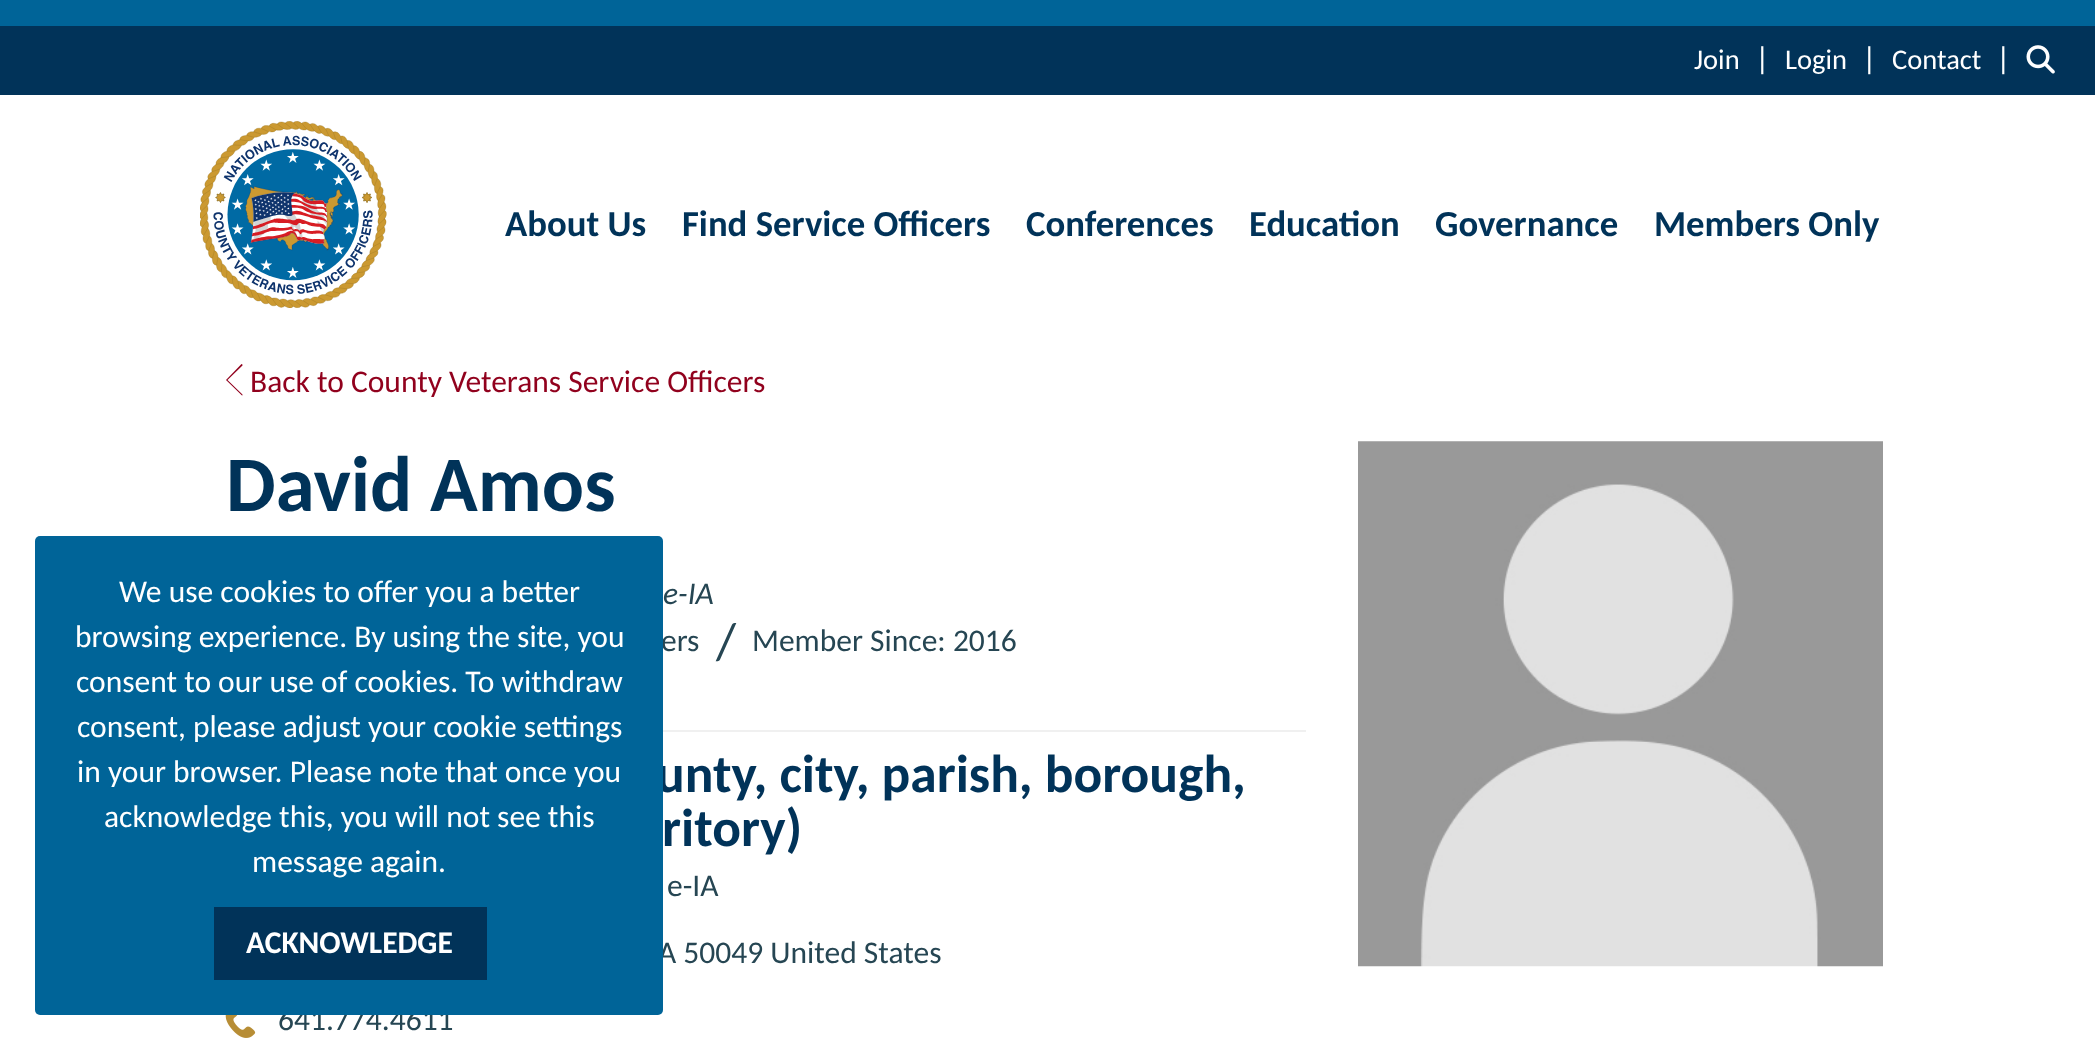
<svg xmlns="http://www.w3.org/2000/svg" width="2095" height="1049">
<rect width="100%" height="100%" fill="#fff"/>
<rect width="2095" height="26" fill="#006498"/>
<rect y="26" width="2095" height="69" fill="#013359"/>
<text x="1694" y="69" style="font-family:Carlito;font-size:28.5px;fill:#fff">Join</text>
<text x="1755" y="69" style="font-family:Carlito;font-size:31.5px;fill:#fff">|</text>
<text x="1785" y="69" style="font-family:Carlito;font-size:28.5px;fill:#fff">Login</text>
<text x="1862" y="69" style="font-family:Carlito;font-size:31.5px;fill:#fff">|</text>
<text x="1892" y="69" style="font-family:Carlito;font-size:28.5px;fill:#fff">Contact</text>
<text x="1996" y="69" style="font-family:Carlito;font-size:31.5px;fill:#fff">|</text>
<image x="2026" y="45" width="29" height="29" href="media/1.png"/>
<image x="200" y="121" width="187" height="187" href="media/2.png"/>
<text x="505" y="236" style="font-family:Carlito;font-size:36.75px;font-weight:bold;fill:#013359">About Us</text>
<text x="682" y="236" style="font-family:Carlito;font-size:36.75px;font-weight:bold;fill:#013359">Find Service Officers</text>
<text x="1026" y="236" style="font-family:Carlito;font-size:36.75px;font-weight:bold;fill:#013359">Conferences</text>
<text x="1249" y="236" style="font-family:Carlito;font-size:36.75px;font-weight:bold;fill:#013359">Education</text>
<text x="1435" y="236" style="font-family:Carlito;font-size:36.75px;font-weight:bold;fill:#013359">Governance</text>
<text x="1654" y="236" style="font-family:Carlito;font-size:36.75px;font-weight:bold;fill:#013359">Members Only</text>
<path d="M242 395.5l-16-15.5l15.5-16c1 0 1 1 1 1.5l-15 14.5l15 14.5c0 .5 0 1-.5 1z" fill="#91011d"/>
<text x="250" y="392" style="font-family:Carlito;font-size:31.5px;fill:#91011d">Back to County Veterans Service Officers</text>
<rect x="663" y="730" width="643" height="2" fill="#f0f0f0"/>
<text x="226" y="511" style="font-family:Carlito;font-size:78.75px;font-weight:bold;fill:#013359">David Amos</text>
<text x="663" y="604" style="font-family:Carlito;font-size:31.5px;font-style:italic;fill:#264653">e-IA</text>
<text x="661" y="651" style="font-family:Carlito;font-size:31.5px;fill:#264653">ers</text>
<text x="716" y="659" style="font-family:Carlito;font-size:52px;fill:#264653">/</text>
<text x="752" y="651" style="font-family:Carlito;font-size:31.5px;fill:#264653">Member Since: 2016</text>
<text x="656" y="792" style="font-family:Carlito;font-size:53.5px;font-weight:bold;fill:#013359">unty, city, parish, borough,</text>
<text x="662" y="846" style="font-family:Carlito;font-size:53.5px;font-weight:bold;fill:#013359">ritory)</text>
<text x="667" y="896" style="font-family:Carlito;font-size:31.5px;fill:#264653">e-IA</text>
<text x="658" y="963" style="font-family:Carlito;font-size:31.5px;fill:#264653">A 50049 United States</text>
<image x="225" y="1015" width="31" height="23" href="media/3.png"/>
<text x="278" y="1030" style="font-family:Carlito;font-size:31.5px;fill:#264653">641.774.4611</text>
<image x="1358" y="441" width="525" height="526" href="media/4.png"/>
<rect x="35" y="536" width="628" height="479" rx="5" fill="#006498"/>
<text x="119" y="602" style="font-family:Carlito;font-size:31.5px;fill:#fff">We use cookies to offer you a better</text>
<text x="75" y="647" style="font-family:Carlito;font-size:31.5px;fill:#fff">browsing experience. By using the site, you</text>
<text x="76" y="692" style="font-family:Carlito;font-size:31.5px;fill:#fff">consent to our use of cookies. To withdraw</text>
<text x="77" y="737" style="font-family:Carlito;font-size:31.5px;fill:#fff">consent, please adjust your cookie settings</text>
<text x="77" y="782" style="font-family:Carlito;font-size:31.5px;fill:#fff">in your browser. Please note that once you</text>
<text x="104" y="827" style="font-family:Carlito;font-size:31.5px;fill:#fff">acknowledge this, you will not see this</text>
<text x="252" y="872" style="font-family:Carlito;font-size:31.5px;fill:#fff">message again.</text>
<rect x="214" y="907" width="273" height="73" fill="#013359"/>
<text x="246" y="953" style="font-family:Carlito;font-size:31.5px;font-weight:bold;fill:#fff">ACKNOWLEDGE</text>
</svg>
